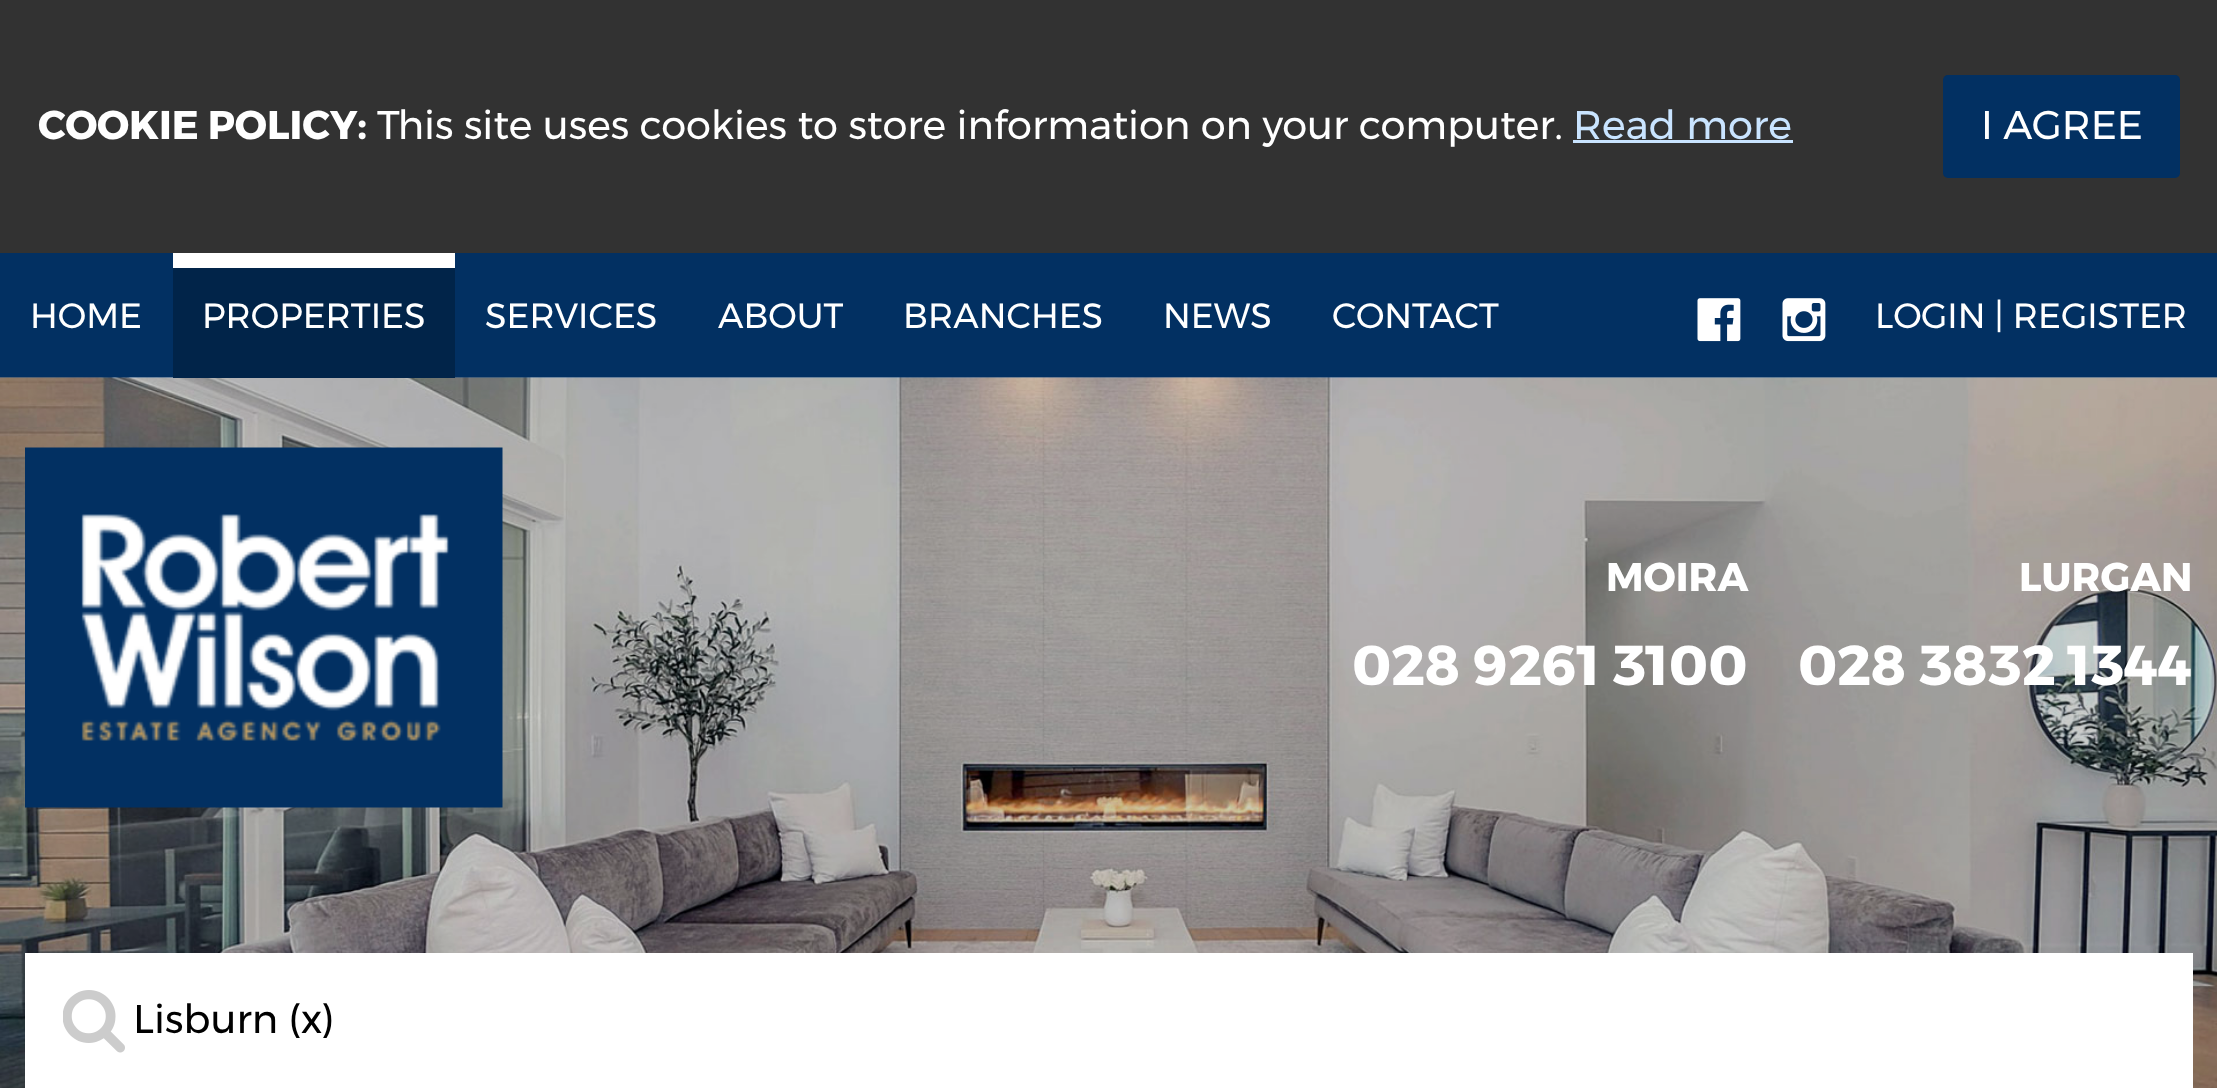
<svg xmlns="http://www.w3.org/2000/svg" width="2217" height="1088">
<rect width="100%" height="100%" fill="#023062"/>
<rect width="2217" height="253" fill="#323232"/>
<text x="38" y="139" style="font-family:Montserrat;font-size:40px;font-weight:bold;fill:#fff">COOKIE POLICY:</text>
<text x="377" y="139" style="font-family:Montserrat;font-size:40px;fill:#fff">This site uses cookies to store information on your computer.</text>
<text x="1573" y="139" style="font-family:Montserrat;font-size:40px;fill:#c9e4ff">Read more</text>
<rect x="1573" y="140" width="220" height="3" fill="#c9e4ff"/>
<rect x="1943" y="75" width="237" height="103" rx="5" fill="#023062"/>
<text x="1981" y="139" style="font-family:Montserrat;font-size:40px;fill:#fff">I AGREE</text>
<text x="30" y="328" style="font-family:Montserrat;font-size:35px;fill:#fff">HOME</text>
<image x="0" y="377" width="2217" height="711" href="media/3.png"/>
<rect x="173" y="268" width="282" height="110" fill="#012449"/>
<rect x="173" y="253" width="282" height="15" fill="#fff"/>
<text x="202" y="328" style="font-family:Montserrat;font-size:35px;fill:#fff">PROPERTIES</text>
<text x="485" y="328" style="font-family:Montserrat;font-size:35px;fill:#fff">SERVICES</text>
<text x="718" y="328" style="font-family:Montserrat;font-size:35px;fill:#fff">ABOUT</text>
<text x="903" y="328" style="font-family:Montserrat;font-size:35px;fill:#fff">BRANCHES</text>
<text x="1163" y="328" style="font-family:Montserrat;font-size:35px;fill:#fff">NEWS</text>
<text x="1332" y="328" style="font-family:Montserrat;font-size:35px;fill:#fff">CONTACT</text>
<image x="1697" y="298" width="44" height="44" href="media/1.png"/>
<image x="1782" y="298" width="44" height="44" href="media/2.png"/>
<text x="1875" y="328" style="font-family:Montserrat;font-size:35px;fill:#fff">LOGIN | REGISTER</text>
<image x="25" y="447" width="478" height="361" href="media/4.png"/>
<text x="1606" y="591" style="font-family:Montserrat;font-size:40px;font-weight:bold;fill:#fff">MOIRA</text>
<text x="1352" y="685" style="font-family:Montserrat;font-size:56px;font-weight:bold;fill:#fff">028 9261 3100</text>
<text x="2019" y="591" style="font-family:Montserrat;font-size:40px;font-weight:bold;fill:#fff">LURGAN</text>
<text x="1798" y="685" style="font-family:Montserrat;font-size:56px;font-weight:bold;fill:#fff">028 3832 1344</text>
<rect x="25" y="953" width="2168" height="135" fill="#fff"/>
<image x="63" y="990" width="62" height="63" href="media/5.png"/>
<text x="133" y="1033" style="font-family:Montserrat;font-size:40px;fill:#000">Lisburn (x)</text>
</svg>
